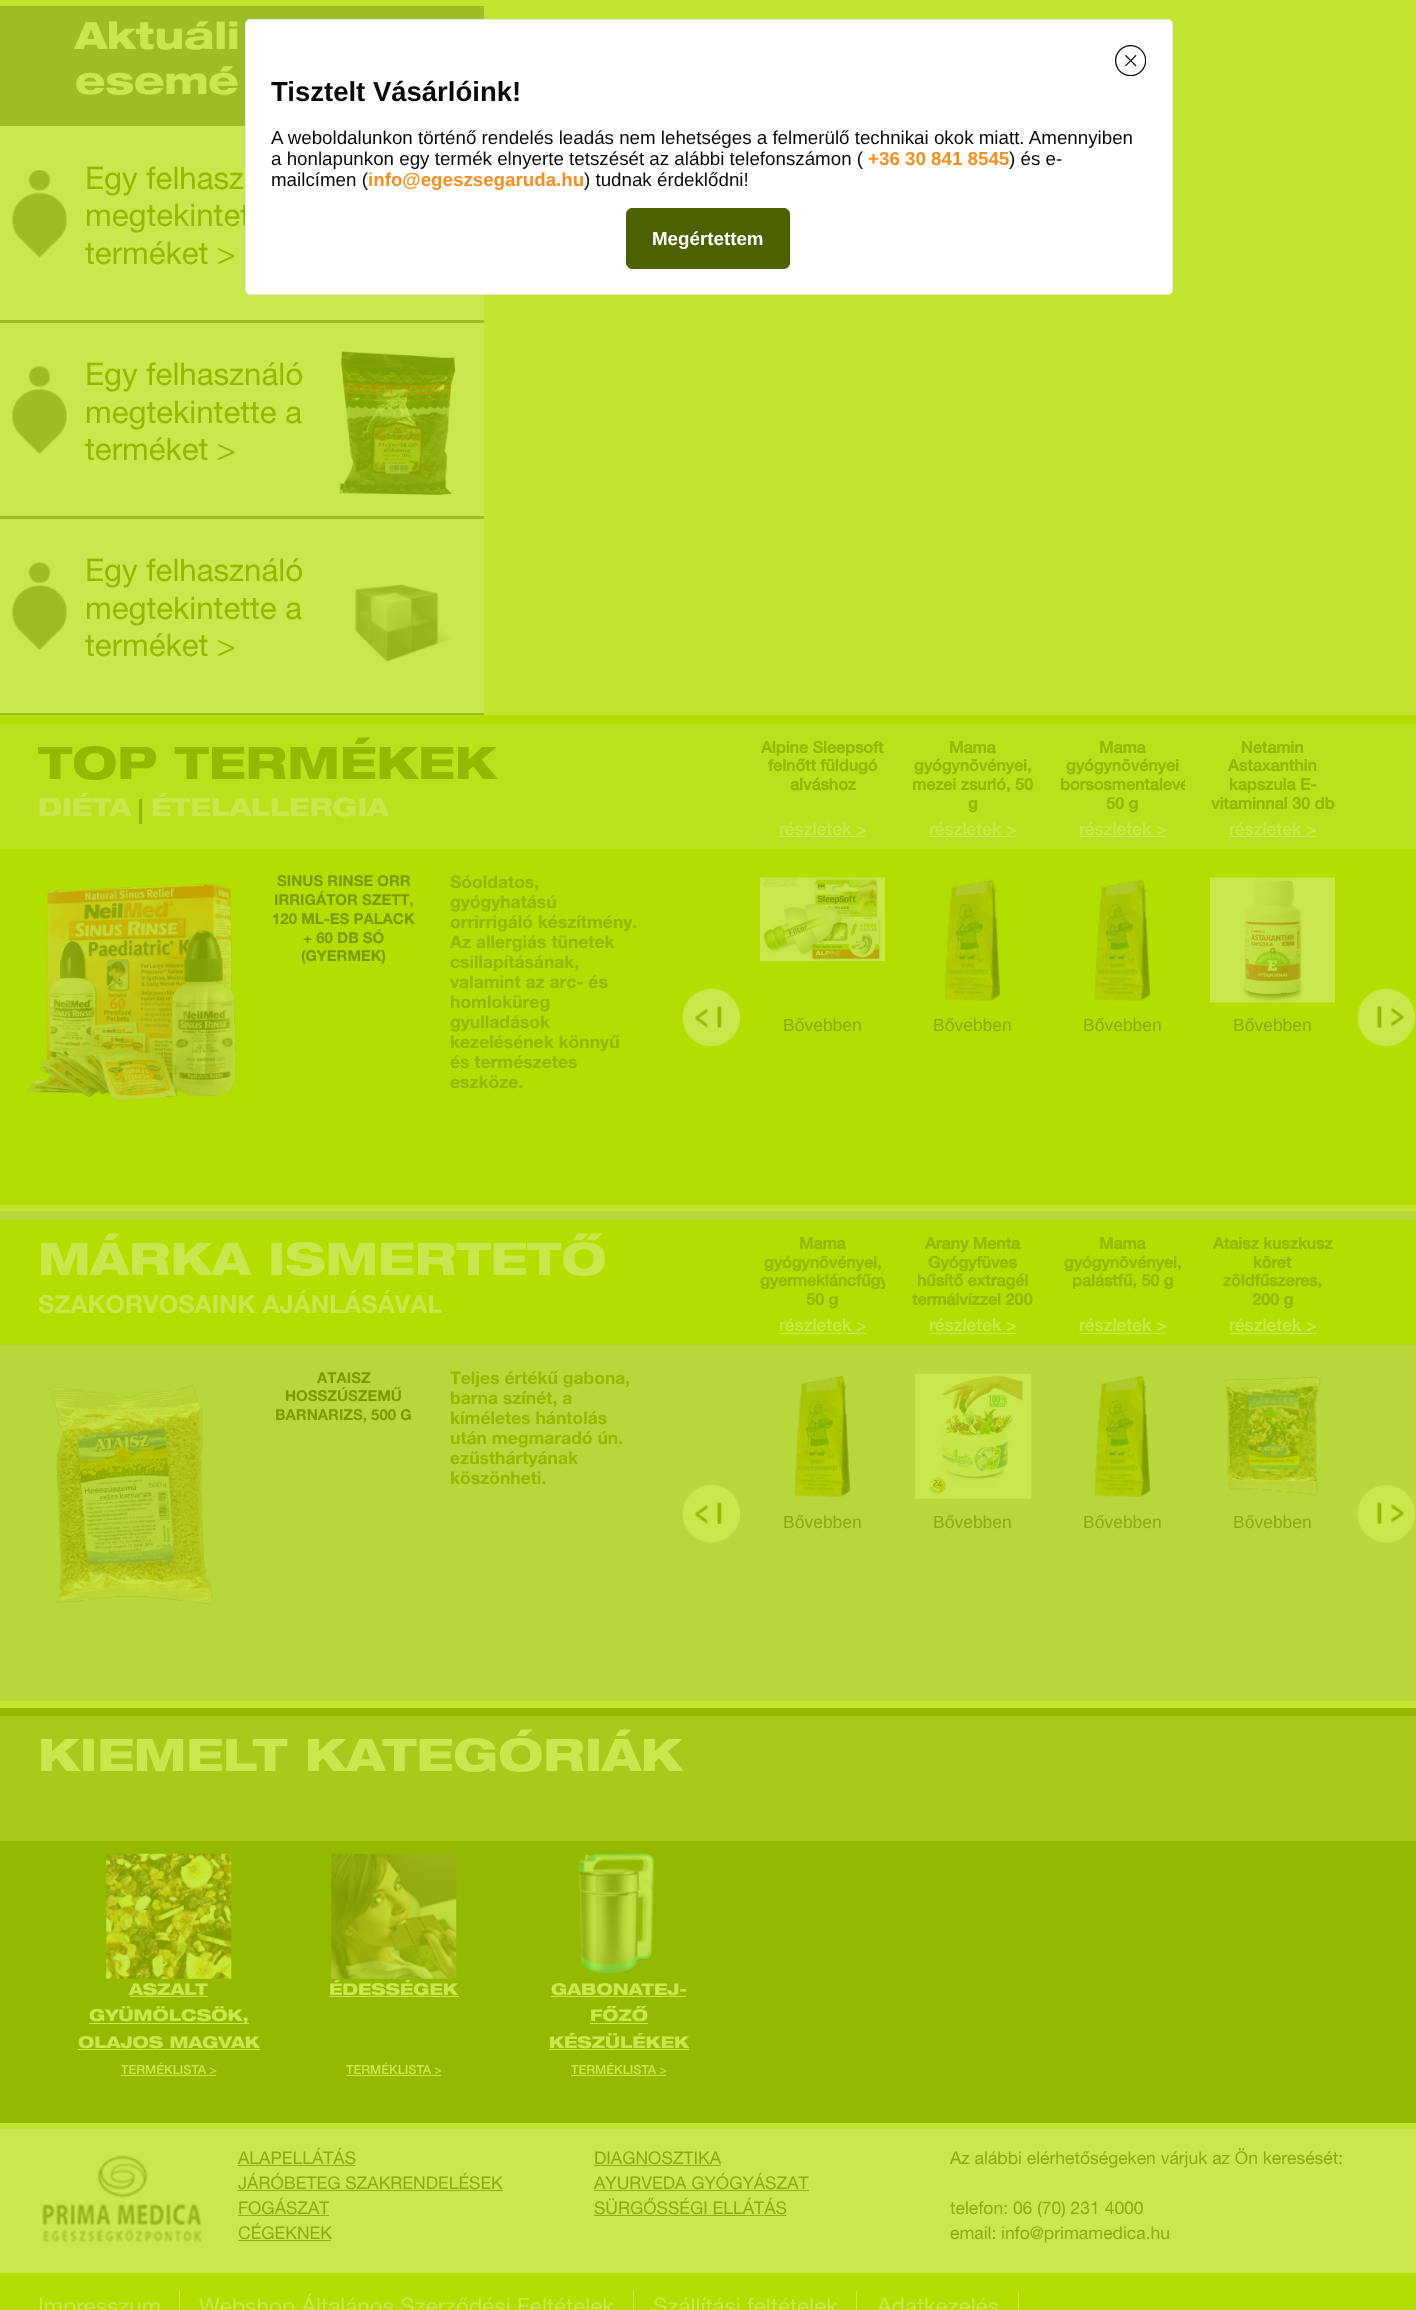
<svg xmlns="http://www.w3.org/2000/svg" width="1416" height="2310">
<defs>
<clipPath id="clip1"><rect x="1060" y="740" width="125" height="76"/></clipPath>
<clipPath id="clip2"><rect x="760" y="1236" width="125" height="77"/></clipPath>
</defs>
<rect width="100%" height="100%" fill="#c2e62f"/>
<rect y="6" width="484" height="120" fill="#9ebd22"/>
<text x="75" y="49" style="font-family:Helvetica Neue;font-size:37.5px;font-weight:900;fill:#c9e84d">Aktuáli</text>
<text x="75" y="94" style="font-family:Helvetica Neue;font-size:37.5px;font-weight:900;fill:#c9e84d">esemé</text>
<rect y="126" width="484" height="194" fill="#c9e84d"/>
<image x="12" y="170" width="56" height="88" href="media/1.png"/>
<text x="85" y="189" style="font-family:Helvetica Neue;font-size:31.25px;fill:#93b900">Egy felhasz</text>
<text x="85" y="226" style="font-family:Helvetica Neue;font-size:31.25px;fill:#93b900">megtekintet</text>
<text x="85" y="264" style="font-family:Helvetica Neue;font-size:31.25px;fill:#93b900">terméket &gt;</text>
<rect y="320" width="484" height="3" fill="#9ebd22"/>
<rect y="323" width="484" height="193" fill="#c9e84d"/>
<image x="12" y="366" width="56" height="88" href="media/2.png"/>
<text x="85" y="385" style="font-family:Helvetica Neue;font-size:31.25px;fill:#93b900">Egy felhasználó</text>
<text x="85" y="423" style="font-family:Helvetica Neue;font-size:31.25px;fill:#93b900">megtekintette a</text>
<text x="85" y="460" style="font-family:Helvetica Neue;font-size:31.25px;fill:#93b900">terméket &gt;</text>
<image x="339" y="351" width="117" height="144" href="media/3.png"/>
<rect y="516" width="484" height="3" fill="#9ebd22"/>
<rect y="519" width="484" height="194" fill="#c9e84d"/>
<image x="12" y="562" width="56" height="88" href="media/4.png"/>
<text x="85" y="581" style="font-family:Helvetica Neue;font-size:31.25px;fill:#93b900">Egy felhasználó</text>
<text x="85" y="619" style="font-family:Helvetica Neue;font-size:31.25px;fill:#93b900">megtekintette a</text>
<text x="85" y="656" style="font-family:Helvetica Neue;font-size:31.25px;fill:#93b900">terméket &gt;</text>
<image x="355" y="583" width="98" height="80" href="media/5.png"/>
<rect y="713" width="484" height="2" fill="#9ebd22"/>
<rect y="715" width="1416" height="490" fill="#b2de00"/>
<rect y="724" width="1416" height="125" fill="#bae21c"/>
<text x="38" y="779" style="font-family:Helvetica Neue;font-size:45px;font-weight:900;fill:#93b900">TOP TERMÉKEK</text>
<text x="38" y="816" style="font-family:Helvetica Neue;font-size:25px;font-weight:900;fill:#c9e84d">DIÉTA</text>
<rect x="139" y="799" width="3" height="25" fill="#93b900"/>
<text x="151" y="816" style="font-family:Helvetica Neue;font-size:25px;font-weight:900;fill:#c9e84d">ÉTELALLERGIA</text>
<image x="26" y="884" width="210" height="217" href="media/6.png"/>
<text x="277" y="886" style="font-family:Helvetica Neue;font-size:15px;font-weight:bold;fill:#7d9b00">SINUS RINSE ORR</text>
<text x="274" y="905" style="font-family:Helvetica Neue;font-size:15px;font-weight:bold;fill:#7d9b00">IRRIGÁTOR SZETT,</text>
<text x="272" y="924" style="font-family:Helvetica Neue;font-size:15px;font-weight:bold;fill:#7d9b00">120 ML-ES PALACK</text>
<text x="303" y="943" style="font-family:Helvetica Neue;font-size:15px;font-weight:bold;fill:#7d9b00">+ 60 DB SÓ</text>
<text x="301" y="961" style="font-family:Helvetica Neue;font-size:15px;font-weight:bold;fill:#7d9b00">(GYERMEK)</text>
<text x="450" y="888" style="font-family:Helvetica Neue;font-size:17.5px;font-weight:bold;fill:#93b900">Sóoldatos,</text>
<text x="450" y="908" style="font-family:Helvetica Neue;font-size:17.5px;font-weight:bold;fill:#93b900">gyógyhatású</text>
<text x="450" y="928" style="font-family:Helvetica Neue;font-size:17.5px;font-weight:bold;fill:#93b900">orrirrigáló készítmény.</text>
<text x="450" y="948" style="font-family:Helvetica Neue;font-size:17.5px;font-weight:bold;fill:#93b900">Az allergiás tünetek</text>
<text x="450" y="968" style="font-family:Helvetica Neue;font-size:17.5px;font-weight:bold;fill:#93b900">csillapításának,</text>
<text x="450" y="988" style="font-family:Helvetica Neue;font-size:17.5px;font-weight:bold;fill:#93b900">valamint az arc- és</text>
<text x="450" y="1008" style="font-family:Helvetica Neue;font-size:17.5px;font-weight:bold;fill:#93b900">homloküreg</text>
<text x="450" y="1028" style="font-family:Helvetica Neue;font-size:17.5px;font-weight:bold;fill:#93b900">gyulladások</text>
<text x="450" y="1048" style="font-family:Helvetica Neue;font-size:17.5px;font-weight:bold;fill:#93b900">kezelésének könnyű</text>
<text x="450" y="1068" style="font-family:Helvetica Neue;font-size:17.5px;font-weight:bold;fill:#93b900">és természetes</text>
<text x="450" y="1088" style="font-family:Helvetica Neue;font-size:17.5px;font-weight:bold;fill:#93b900">eszköze.</text>
<image x="682" y="988" width="58" height="59" href="media/7.png"/>
<text x="761" y="753" style="font-family:'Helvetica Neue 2';font-size:16.25px;font-weight:bold;fill:#93b900">Alpine Sleepsoft</text>
<text x="768" y="771" style="font-family:'Helvetica Neue 2';font-size:16.25px;font-weight:bold;fill:#93b900">felnőtt füldugó</text>
<text x="790" y="790" style="font-family:'Helvetica Neue 2';font-size:16.25px;font-weight:bold;fill:#93b900">alváshoz</text>
<text x="779" y="835" style="font-family:Helvetica Neue;font-size:17.5px;font-weight:500;fill:#c9e84d">részletek &gt;</text>
<rect x="779" y="836" width="87" height="1" fill="#c9e84d"/>
<image x="760" y="877" width="125" height="85" href="media/8.png"/>
<text x="783" y="1031" style="font-family:Liberation Sans;font-size:17.5px;fill:#8cab0f">Bővebben</text>
<text x="949" y="753" style="font-family:'Helvetica Neue 2';font-size:16.25px;font-weight:bold;fill:#93b900">Mama</text>
<text x="914" y="771" style="font-family:'Helvetica Neue 2';font-size:16.25px;font-weight:bold;fill:#93b900">gyógynövényei,</text>
<text x="912" y="790" style="font-family:'Helvetica Neue 2';font-size:16.25px;font-weight:bold;fill:#93b900">mezei zsurló, 50</text>
<text x="968" y="809" style="font-family:'Helvetica Neue 2';font-size:16.25px;font-weight:bold;fill:#93b900">g</text>
<text x="929" y="835" style="font-family:Helvetica Neue;font-size:17.5px;font-weight:500;fill:#c9e84d">részletek &gt;</text>
<rect x="929" y="836" width="87" height="1" fill="#c9e84d"/>
<image x="944" y="879" width="57" height="122" href="media/9.png"/>
<text x="933" y="1031" style="font-family:Liberation Sans;font-size:17.5px;fill:#8cab0f">Bővebben</text>
<text x="1099" y="753" style="font-family:'Helvetica Neue 2';font-size:16.25px;font-weight:bold;fill:#93b900">Mama</text>
<text x="1066" y="771" style="font-family:'Helvetica Neue 2';font-size:16.25px;font-weight:bold;fill:#93b900">gyógynövényei</text>
<g clip-path="url(#clip1)">
<text x="1060" y="790" style="font-family:'Helvetica Neue 2';font-size:16.25px;font-weight:bold;fill:#93b900">borsosmentalevé</text>
</g>
<text x="1106" y="809" style="font-family:'Helvetica Neue 2';font-size:16.25px;font-weight:bold;fill:#93b900">50 g</text>
<text x="1079" y="835" style="font-family:Helvetica Neue;font-size:17.5px;font-weight:500;fill:#c9e84d">részletek &gt;</text>
<rect x="1079" y="836" width="87" height="1" fill="#c9e84d"/>
<image x="1094" y="879" width="57" height="122" href="media/10.png"/>
<text x="1083" y="1031" style="font-family:Liberation Sans;font-size:17.5px;fill:#8cab0f">Bővebben</text>
<text x="1241" y="753" style="font-family:'Helvetica Neue 2';font-size:16.25px;font-weight:bold;fill:#93b900">Netamin</text>
<text x="1228" y="771" style="font-family:'Helvetica Neue 2';font-size:16.25px;font-weight:bold;fill:#93b900">Astaxanthin</text>
<text x="1229" y="790" style="font-family:'Helvetica Neue 2';font-size:16.25px;font-weight:bold;fill:#93b900">kapszula E-</text>
<text x="1211" y="809" style="font-family:'Helvetica Neue 2';font-size:16.25px;font-weight:bold;fill:#93b900">vitaminnal 30 db</text>
<text x="1229" y="835" style="font-family:Helvetica Neue;font-size:17.5px;font-weight:500;fill:#c9e84d">részletek &gt;</text>
<rect x="1229" y="836" width="87" height="1" fill="#c9e84d"/>
<image x="1210" y="877" width="125" height="126" href="media/11.png"/>
<text x="1233" y="1031" style="font-family:Liberation Sans;font-size:17.5px;fill:#8cab0f">Bővebben</text>
<image x="1357" y="988" width="59" height="59" href="media/12.png"/>
<rect y="1211" width="1416" height="490" fill="#b8d73b"/>
<rect y="1220" width="1416" height="125" fill="#b2de00"/>
<text x="38" y="1275" style="font-family:Helvetica Neue;font-size:45px;font-weight:900;fill:#c9e84d">MÁRKA ISMERTETŐ</text>
<text x="38" y="1313" style="font-family:Helvetica Neue;font-size:25px;font-weight:bold;fill:#c9e84d">SZAKORVOSAINK AJÁNLÁSÁVAL</text>
<image x="49" y="1385" width="164" height="220" href="media/13.png"/>
<text x="317" y="1383" style="font-family:Helvetica Neue;font-size:15px;font-weight:bold;fill:#7d9b00">ATAISZ</text>
<text x="285" y="1401" style="font-family:Helvetica Neue;font-size:15px;font-weight:bold;fill:#7d9b00">HOSSZÚSZEMŰ</text>
<text x="275" y="1420" style="font-family:Helvetica Neue;font-size:15px;font-weight:bold;fill:#7d9b00">BARNARIZS, 500 G</text>
<text x="450" y="1384" style="font-family:Helvetica Neue;font-size:17.5px;font-weight:bold;fill:#93b900">Teljes értékű gabona,</text>
<text x="450" y="1404" style="font-family:Helvetica Neue;font-size:17.5px;font-weight:bold;fill:#93b900">barna színét, a</text>
<text x="450" y="1424" style="font-family:Helvetica Neue;font-size:17.5px;font-weight:bold;fill:#93b900">kíméletes hántolás</text>
<text x="450" y="1444" style="font-family:Helvetica Neue;font-size:17.5px;font-weight:bold;fill:#93b900">után megmaradó ún.</text>
<text x="450" y="1464" style="font-family:Helvetica Neue;font-size:17.5px;font-weight:bold;fill:#93b900">ezüsthártyának</text>
<text x="450" y="1484" style="font-family:Helvetica Neue;font-size:17.5px;font-weight:bold;fill:#93b900">köszönheti.</text>
<image x="682" y="1485" width="58" height="58" href="media/14.png"/>
<text x="799" y="1249" style="font-family:'Helvetica Neue 2';font-size:16.25px;font-weight:bold;fill:#93b900">Mama</text>
<text x="764" y="1268" style="font-family:'Helvetica Neue 2';font-size:16.25px;font-weight:bold;fill:#93b900">gyógynövényei,</text>
<g clip-path="url(#clip2)">
<text x="760" y="1286" style="font-family:'Helvetica Neue 2';font-size:16.25px;font-weight:bold;fill:#93b900">gyermekláncfűgy</text>
</g>
<text x="806" y="1305" style="font-family:'Helvetica Neue 2';font-size:16.25px;font-weight:bold;fill:#93b900">50 g</text>
<text x="779" y="1331" style="font-family:Helvetica Neue;font-size:17.5px;font-weight:500;fill:#c9e84d">részletek &gt;</text>
<rect x="779" y="1333" width="87" height="1" fill="#c9e84d"/>
<image x="794" y="1375" width="57" height="122" href="media/15.png"/>
<text x="783" y="1528" style="font-family:Liberation Sans;font-size:17.5px;fill:#8cab0f">Bővebben</text>
<text x="925" y="1249" style="font-family:'Helvetica Neue 2';font-size:16.25px;font-weight:bold;fill:#93b900">Arany Menta</text>
<text x="928" y="1268" style="font-family:'Helvetica Neue 2';font-size:16.25px;font-weight:bold;fill:#93b900">Gyógyfüves</text>
<text x="917" y="1286" style="font-family:'Helvetica Neue 2';font-size:16.25px;font-weight:bold;fill:#93b900">hűsítő extragél</text>
<text x="912" y="1305" style="font-family:'Helvetica Neue 2';font-size:16.25px;font-weight:bold;fill:#93b900">termálvízzel 200</text>
<text x="929" y="1331" style="font-family:Helvetica Neue;font-size:17.5px;font-weight:500;fill:#c9e84d">részletek &gt;</text>
<rect x="929" y="1333" width="87" height="1" fill="#c9e84d"/>
<image x="915" y="1373" width="117" height="126" href="media/16.png"/>
<text x="933" y="1528" style="font-family:Liberation Sans;font-size:17.5px;fill:#8cab0f">Bővebben</text>
<text x="1099" y="1249" style="font-family:'Helvetica Neue 2';font-size:16.25px;font-weight:bold;fill:#93b900">Mama</text>
<text x="1064" y="1268" style="font-family:'Helvetica Neue 2';font-size:16.25px;font-weight:bold;fill:#93b900">gyógynövényei,</text>
<text x="1072" y="1286" style="font-family:'Helvetica Neue 2';font-size:16.25px;font-weight:bold;fill:#93b900">palástfű, 50 g</text>
<text x="1079" y="1331" style="font-family:Helvetica Neue;font-size:17.5px;font-weight:500;fill:#c9e84d">részletek &gt;</text>
<rect x="1079" y="1333" width="87" height="1" fill="#c9e84d"/>
<image x="1094" y="1375" width="57" height="122" href="media/15.png"/>
<text x="1083" y="1528" style="font-family:Liberation Sans;font-size:17.5px;fill:#8cab0f">Bővebben</text>
<text x="1213" y="1249" style="font-family:'Helvetica Neue 2';font-size:16.25px;font-weight:bold;fill:#93b900">Ataisz kuszkusz</text>
<text x="1253" y="1268" style="font-family:'Helvetica Neue 2';font-size:16.25px;font-weight:bold;fill:#93b900">köret</text>
<text x="1223" y="1286" style="font-family:'Helvetica Neue 2';font-size:16.25px;font-weight:bold;fill:#93b900">zöldfűszeres,</text>
<text x="1252" y="1305" style="font-family:'Helvetica Neue 2';font-size:16.25px;font-weight:bold;fill:#93b900">200 g</text>
<text x="1229" y="1331" style="font-family:Helvetica Neue;font-size:17.5px;font-weight:500;fill:#c9e84d">részletek &gt;</text>
<rect x="1229" y="1333" width="87" height="1" fill="#c9e84d"/>
<image x="1224" y="1376" width="97" height="120" href="media/17.png"/>
<text x="1233" y="1528" style="font-family:Liberation Sans;font-size:17.5px;fill:#8cab0f">Bővebben</text>
<image x="1357" y="1485" width="59" height="58" href="media/18.png"/>
<rect y="1708" width="1416" height="415" fill="#93b900"/>
<rect y="1716" width="1416" height="125" fill="#a7ca1c"/>
<text x="38" y="1771" style="font-family:Helvetica Neue;font-size:45px;font-weight:900;fill:#c9e84d">KIEMELT KATEGÓRIÁK</text>
<image x="106" y="1853" width="126" height="126" href="media/19.png"/>
<text x="129" y="1995" style="font-family:Helvetica Neue;font-size:16.25px;font-weight:900;fill:#c9e84d">ASZALT</text>
<rect x="130" y="1996" width="78" height="1" fill="#c9e84d"/>
<rect x="89" y="2023" width="160" height="1" fill="#c9e84d"/>
<text x="89" y="2021" style="font-family:Helvetica Neue;font-size:16.25px;font-weight:900;fill:#c9e84d">GYÜMÖLCSÖK,</text>
<text x="78" y="2048" style="font-family:Helvetica Neue;font-size:16.25px;font-weight:900;fill:#c9e84d">OLAJOS MAGVAK</text>
<rect x="78" y="2049" width="182" height="1" fill="#c9e84d"/>
<text x="121" y="2074" style="font-family:Helvetica Neue;font-size:12.5px;font-weight:500;fill:#c9e84d">TERMÉKLISTA &gt;</text>
<rect x="121" y="2075" width="95" height="1" fill="#c9e84d"/>
<image x="331" y="1853" width="126" height="126" href="media/20.png"/>
<text x="329" y="1995" style="font-family:Helvetica Neue;font-size:16.25px;font-weight:900;fill:#c9e84d">ÉDESSÉGEK</text>
<rect x="329" y="1996" width="130" height="1" fill="#c9e84d"/>
<text x="346" y="2074" style="font-family:Helvetica Neue;font-size:12.5px;font-weight:500;fill:#c9e84d">TERMÉKLISTA &gt;</text>
<rect x="346" y="2075" width="95" height="1" fill="#c9e84d"/>
<image x="578" y="1853" width="76" height="121" href="media/21.png"/>
<text x="551" y="1995" style="font-family:Helvetica Neue;font-size:16.25px;font-weight:900;fill:#c9e84d">GABONATEJ-</text>
<rect x="551" y="1996" width="135" height="1" fill="#c9e84d"/>
<text x="590" y="2021" style="font-family:Helvetica Neue;font-size:16.25px;font-weight:900;fill:#c9e84d">FŐZŐ</text>
<rect x="590" y="2023" width="58" height="1" fill="#c9e84d"/>
<text x="549" y="2048" style="font-family:Helvetica Neue;font-size:16.25px;font-weight:900;fill:#c9e84d">KÉSZÜLÉKEK</text>
<rect x="549" y="2049" width="140" height="1" fill="#c9e84d"/>
<text x="571" y="2074" style="font-family:Helvetica Neue;font-size:12.5px;font-weight:500;fill:#c9e84d">TERMÉKLISTA &gt;</text>
<rect x="571" y="2075" width="95" height="1" fill="#c9e84d"/>
<rect y="2129" width="1416" height="144" fill="#c9e84d"/>
<image x="42" y="2155" width="160" height="88" href="media/22.png"/>
<text x="238" y="2164" style="font-family:Helvetica Neue;font-size:17.5px;fill:#8cab0f">ALAPELLÁTÁS</text>
<rect x="238" y="2165" width="117" height="1" fill="#90af14"/>
<text x="594" y="2164" style="font-family:Helvetica Neue;font-size:17.5px;fill:#8cab0f">DIAGNOSZTIKA</text>
<rect x="594" y="2165" width="127" height="1" fill="#90af14"/>
<text x="238" y="2189" style="font-family:Helvetica Neue;font-size:17.5px;fill:#8cab0f">JÁRÓBETEG SZAKRENDELÉSEK</text>
<rect x="238" y="2190" width="265" height="1" fill="#90af14"/>
<text x="594" y="2189" style="font-family:Helvetica Neue;font-size:17.5px;fill:#8cab0f">AYURVEDA GYÓGYÁSZAT</text>
<rect x="594" y="2190" width="215" height="1" fill="#90af14"/>
<text x="238" y="2214" style="font-family:Helvetica Neue;font-size:17.5px;fill:#8cab0f">FOGÁSZAT</text>
<rect x="238" y="2215" width="91" height="1" fill="#90af14"/>
<text x="594" y="2214" style="font-family:Helvetica Neue;font-size:17.5px;fill:#8cab0f">SÜRGŐSSÉGI ELLÁTÁS</text>
<rect x="594" y="2215" width="192" height="1" fill="#90af14"/>
<text x="238" y="2239" style="font-family:Helvetica Neue;font-size:17.5px;fill:#8cab0f">CÉGEKNEK</text>
<rect x="238" y="2240" width="93" height="1" fill="#90af14"/>
<text x="950" y="2164" style="font-family:Helvetica Neue;font-size:17.5px;fill:#8cab0f">Az alábbi elérhetőségeken várjuk az Ön keresését:</text>
<text x="950" y="2214" style="font-family:Helvetica Neue;font-size:17.5px;fill:#8cab0f">telefon: 06 (70) 231 4000</text>
<text x="950" y="2239" style="font-family:Helvetica Neue;font-size:17.5px;fill:#8cab0f">email:</text>
<text x="1001" y="2239" style="font-family:Helvetica Neue;font-size:17.5px;fill:#8cab0f">info@primamedica.hu</text>
<rect y="2273" width="1416" height="37" fill="#b2de00"/>
<rect x="179" y="2291" width="1" height="19" fill="#c9e84d"/>
<text x="38" y="2314" style="font-family:Helvetica Neue;font-size:22.5px;fill:#c9e84d">Impresszum</text>
<rect x="633" y="2291" width="1" height="19" fill="#c9e84d"/>
<text x="199" y="2314" style="font-family:Helvetica Neue;font-size:22.5px;fill:#c9e84d">Webshop Általános Szerződési Feltételek</text>
<rect x="856" y="2291" width="1" height="19" fill="#c9e84d"/>
<text x="653" y="2314" style="font-family:Helvetica Neue;font-size:22.5px;fill:#c9e84d">Szállítási feltételek</text>
<rect x="1018" y="2291" width="1" height="19" fill="#c9e84d"/>
<text x="877" y="2314" style="font-family:Helvetica Neue;font-size:22.5px;fill:#c9e84d">Adatkezelés</text>
<rect x="245.5" y="19.5" width="927" height="275" rx="4.5" fill="#fff" stroke="#e7e7e7"/>
<image x="1115" y="45" width="31" height="31" href="media/23.png"/>
<text x="271" y="101" style="font-family:Liberation Sans;font-size:27.5px;font-weight:bold;fill:#0a0a0a">Tisztelt Vásárlóink!</text>
<text x="271" y="144" style="font-family:Liberation Sans;font-size:18.75px;fill:#0a0a0a">A weboldalunkon történő rendelés leadás nem lehetséges a felmerülő technikai okok miatt. Amennyiben</text>
<text x="271" y="165" style="font-family:Liberation Sans;font-size:18.75px;fill:#0a0a0a">a honlapunkon egy termék elnyerte tetszését az alábbi telefonszámon (</text>
<text x="868" y="165" style="font-family:Liberation Sans;font-size:18.75px;font-weight:bold;fill:#f78f1e">+36 30 841 8545</text>
<text x="1009" y="165" style="font-family:Liberation Sans;font-size:18.75px;fill:#0a0a0a">) és e-</text>
<text x="271" y="186" style="font-family:Liberation Sans;font-size:18.75px;fill:#0a0a0a">mailcímen (</text>
<text x="368" y="186" style="font-family:Liberation Sans;font-size:18.75px;font-weight:bold;fill:#f78f1e">info@egeszsegaruda.hu</text>
<text x="584" y="186" style="font-family:Liberation Sans;font-size:18.75px;fill:#0a0a0a">) tudnak érdeklődni!</text>
<rect x="626.5" y="208.5" width="163" height="60" rx="5.5" fill="#4c6200" stroke="#4c6200"/>
<text x="652" y="245" style="font-family:Liberation Sans;font-size:18.75px;font-weight:bold;fill:#fff">Megértettem</text>
</svg>
